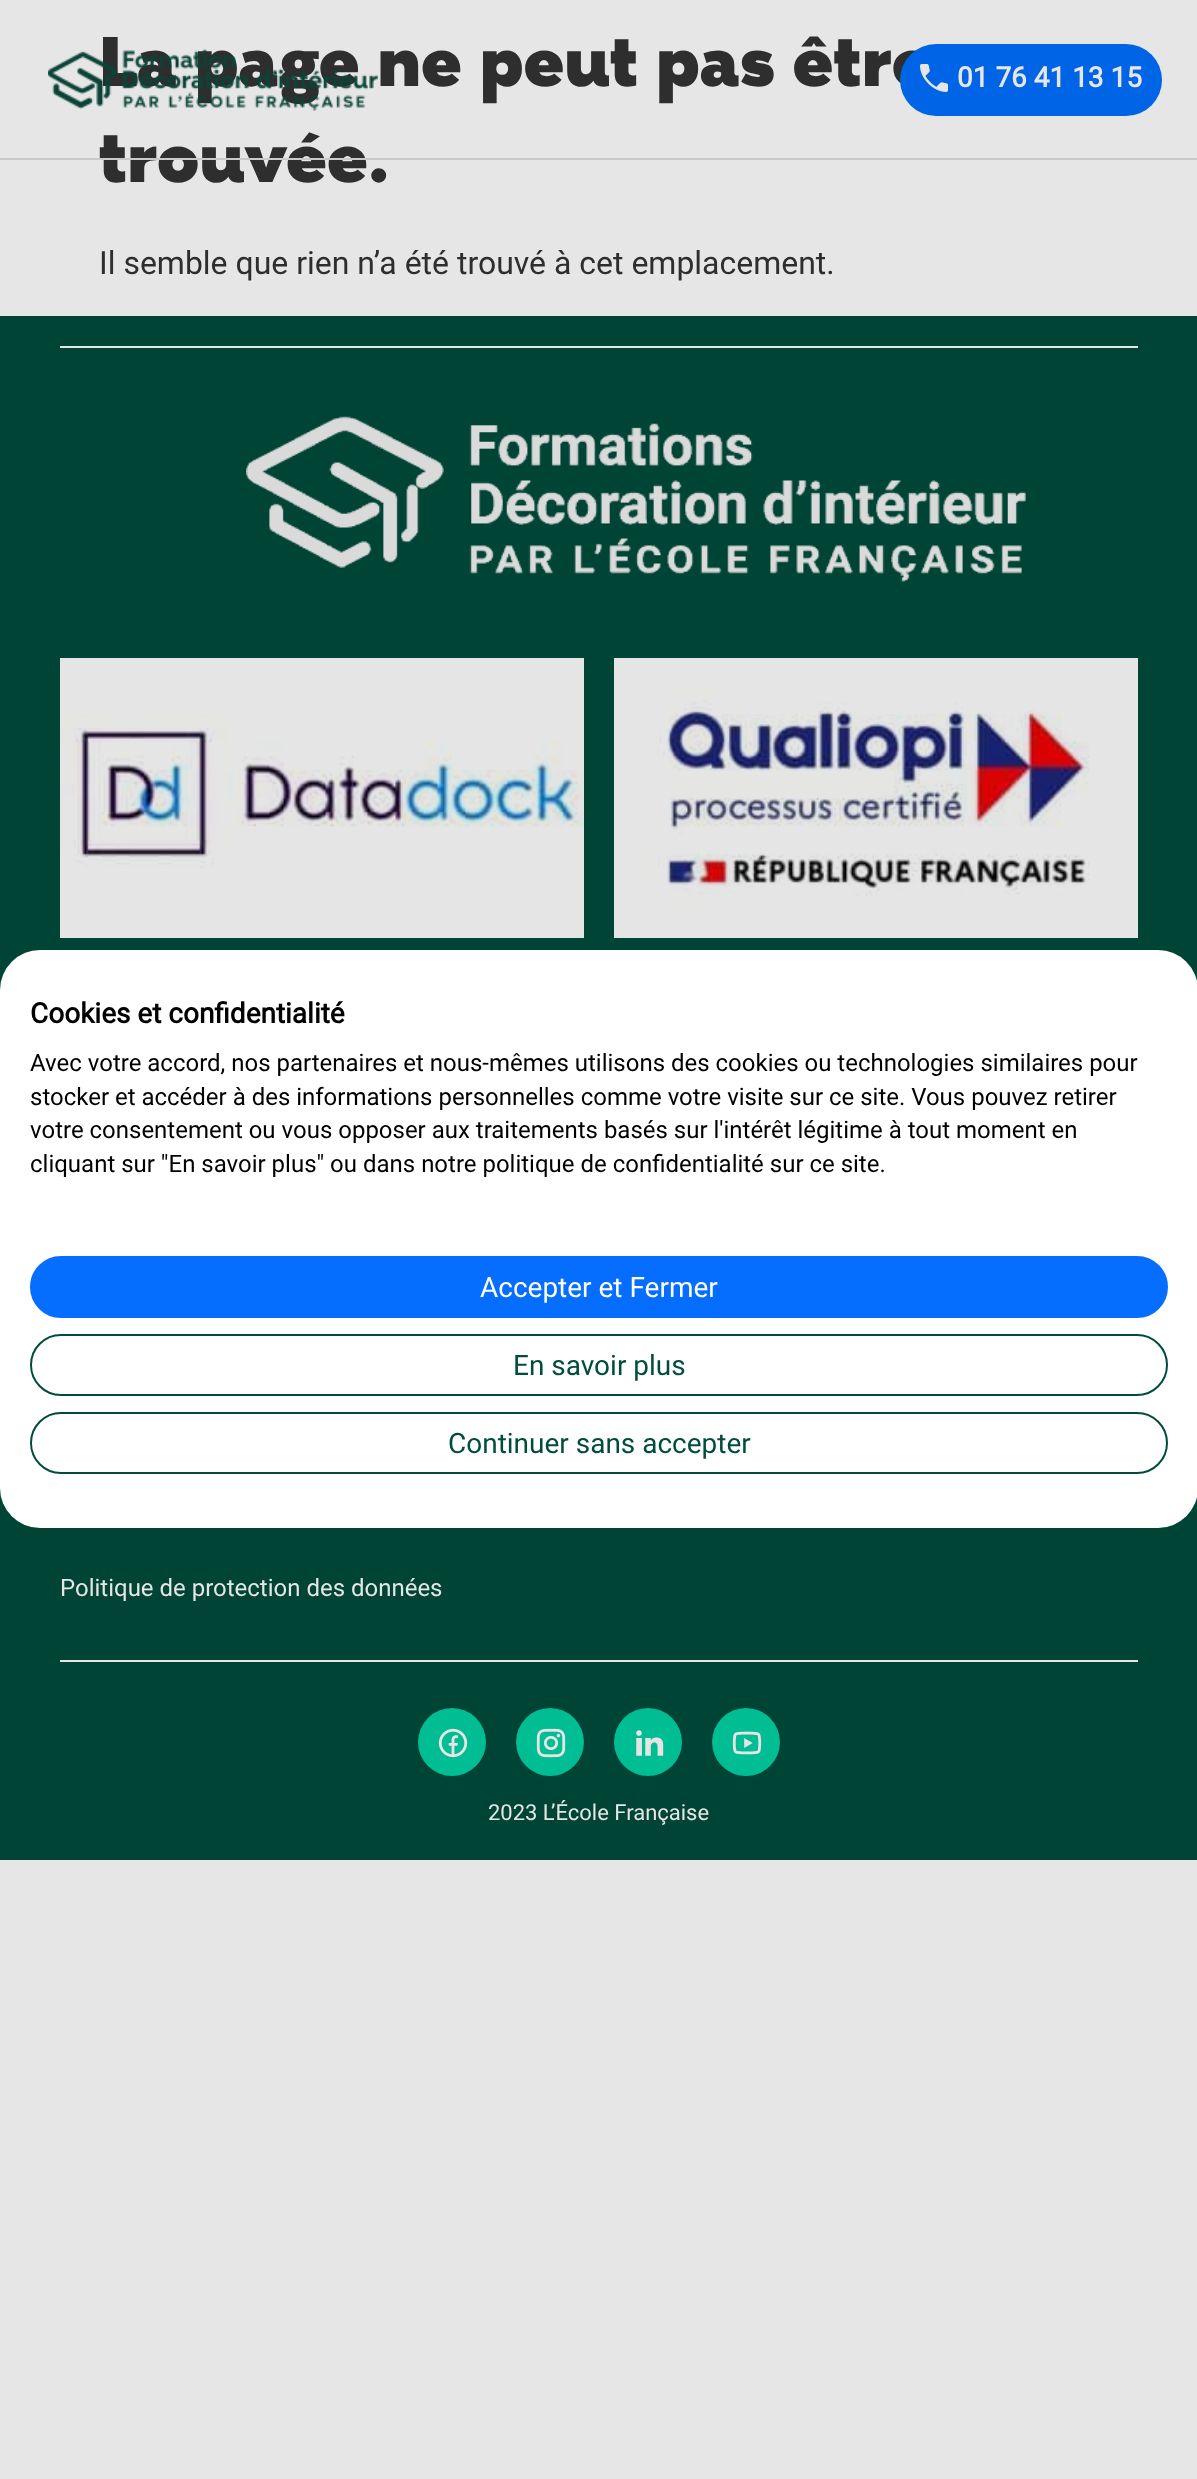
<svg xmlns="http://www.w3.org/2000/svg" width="1197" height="2479">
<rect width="100%" height="100%" fill="#e6e6e6"/>
<text x="99" y="86" style="font-family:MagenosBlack;font-size:80px;font-weight:900;fill:#2e2e2e">La page ne peut pas être</text>
<text x="99" y="182" style="font-family:MagenosBlack;font-size:80px;font-weight:900;fill:#2e2e2e">trouvée.</text>
<text x="99" y="274" style="font-family:Roboto;font-size:32px;fill:#2e2e2e">Il semble que rien n’a été trouvé à cet emplacement.</text>
<rect y="158" width="1197" height="2" fill="#cacaca"/>
<image x="48" y="48" width="330" height="63" href="media/1.png"/>
<rect x="900" y="44" width="262" height="72" rx="36" fill="#0064e6"/>
<image x="920" y="64" width="28" height="28" href="media/2.png"/>
<text x="957" y="87" style="font-family:Roboto;font-size:28px;font-weight:bold;fill:#e6e6e6">01 76 41 13 15</text>
<rect y="316" width="1197" height="1544" fill="#004436"/>
<rect y="950" width="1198" height="578" rx="40" fill="#fff"/>
<text x="30" y="1023" style="font-family:Roboto;font-size:28px;font-weight:bold;fill:#000">Cookies et confidentialité</text>
<text x="30" y="1071" style="font-family:Roboto;font-size:24px;fill:#000">Avec votre accord, nos partenaires et nous-mêmes utilisons des cookies ou technologies similaires pour</text>
<text x="30" y="1105" style="font-family:Roboto;font-size:24px;fill:#000">stocker et accéder à des informations personnelles comme votre visite sur ce site. Vous pouvez retirer</text>
<text x="30" y="1138" style="font-family:Roboto;font-size:24px;fill:#000">votre consentement ou vous opposer aux traitements basés sur l'intérêt légitime à tout moment en</text>
<text x="30" y="1172" style="font-family:Roboto;font-size:24px;fill:#000">cliquant sur "En savoir plus" ou dans notre politique de confidentialité sur ce site.</text>
<rect x="31" y="1257" width="1136" height="60" rx="30" fill="#066eff" stroke="#066eff" stroke-width="2"/>
<text x="480" y="1297" style="font-family:Roboto;font-size:28px;fill:#fff">Accepter et Fermer</text>
<rect x="31" y="1335" width="1136" height="60" rx="30" fill="none" stroke="#014c3c" stroke-width="2"/>
<text x="513" y="1375" style="font-family:Roboto;font-size:28px;fill:#014c3c">En savoir plus</text>
<rect x="31" y="1413" width="1136" height="60" rx="30" fill="none" stroke="#014c3c" stroke-width="2"/>
<text x="448" y="1453" style="font-family:Roboto;font-size:28px;fill:#014c3c">Continuer sans accepter</text>
<rect x="60" y="346" width="1078" height="2" fill="#e6e6e6"/>
<image x="246" y="416" width="780" height="166" href="media/3.png"/>
<image x="60" y="658" width="524" height="280" href="media/4.png"/>
<image x="614" y="658" width="524" height="280" href="media/5.png"/>
<text x="60" y="1596" style="font-family:Roboto;font-size:24px;fill:#e6e6e6">Politique de protection des données</text>
<rect x="60" y="1660" width="1078" height="2" fill="#e6e6e6"/>
<circle cx="452" cy="1742" r="34" fill="#00bd94"/>
<image x="438" y="1728" width="30" height="30" href="media/6.png"/>
<circle cx="550" cy="1742" r="34" fill="#00bd94"/>
<image x="536" y="1728" width="30" height="30" href="media/7.png"/>
<circle cx="648" cy="1742" r="34" fill="#00bd94"/>
<image x="636" y="1730" width="28" height="26" href="media/8.png"/>
<circle cx="746" cy="1742" r="34" fill="#00bd94"/>
<image x="732" y="1731" width="30" height="24" href="media/9.png"/>
<text x="488" y="1820" style="font-family:Roboto;font-size:22px;fill:#e6e6e6">2023 L’École Française</text>
</svg>
